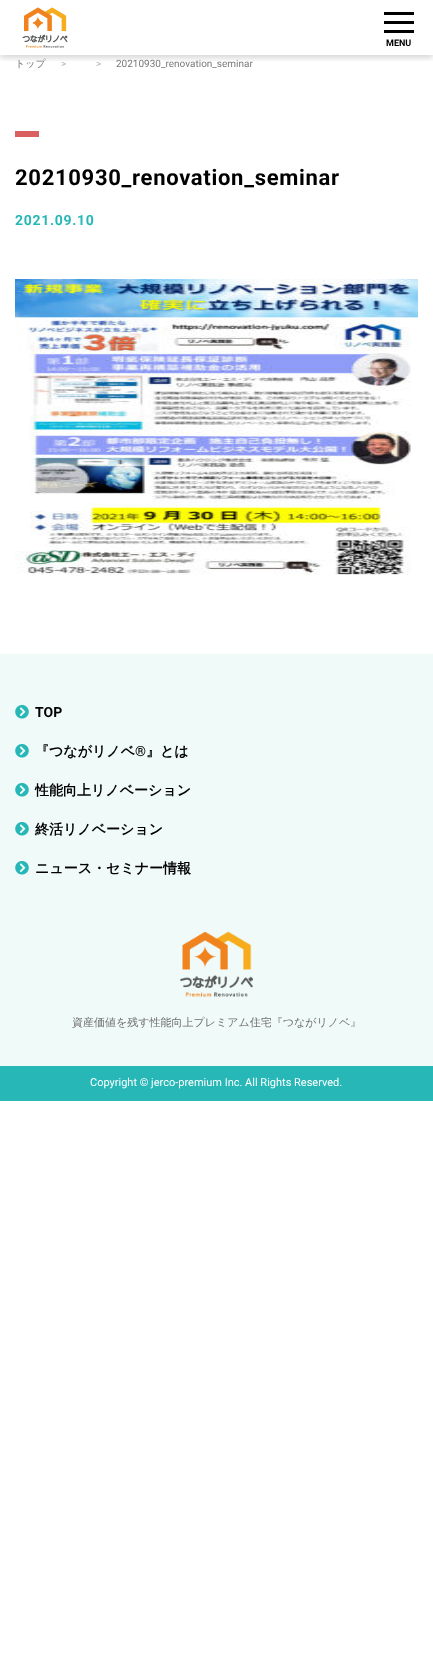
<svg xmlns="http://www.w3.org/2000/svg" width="433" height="1667">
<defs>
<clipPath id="clip1"><rect x="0" y="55" width="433" height="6"/></clipPath>
</defs>
<rect width="100%" height="100%" fill="#fff"/>
<g clip-path="url(#clip1)">
<rect y="3" width="433" height="55" fill="#00000029" filter="blur(3px)"/>
</g>
<image x="22" y="7" width="46" height="41" href="media/1.png"/>
<rect x="384" y="12" width="30" height="3" fill="#000"/>
<rect x="384" y="21" width="30" height="3" fill="#000"/>
<rect x="384" y="30" width="30" height="3" fill="#000"/>
<text x="386" y="46" style="font-family:Roboto;font-size:9px;font-weight:bold;fill:#000">MENU</text>
<text x="15" y="67" style="font-family:WenQuanYi Zen Hei;font-size:10px;font-weight:500;fill:#797979">トップ</text>
<text x="61" y="67" style="font-family:Roboto;font-size:10px;fill:#b1b1b1">&gt;</text>
<text x="96" y="67" style="font-family:Roboto;font-size:10px;fill:#b1b1b1">&gt;</text>
<text x="116" y="67" style="font-family:Roboto;font-size:10px;fill:#797979">20210930_renovation_seminar</text>
<rect x="15" y="131" width="24" height="6" fill="#d96060"/>
<text x="15" y="185" style="font-family:Roboto;font-size:22px;font-weight:bold;letter-spacing:0.7px;fill:#000">20210930_renovation_seminar</text>
<text x="15" y="225" style="font-family:Roboto;font-size:14px;font-weight:bold;letter-spacing:0.7px;fill:#28b7b7">2021.09.10</text>
<image x="15" y="279" width="403" height="296" href="media/2.png"/>
<rect y="654" width="433" height="412" fill="#f0faf8"/>
<image x="15" y="705" width="14" height="14" href="media/3.png"/>
<text x="35" y="717" style="font-family:Roboto;font-size:14px;font-weight:bold;fill:#000">TOP</text>
<image x="15" y="744" width="14" height="14" href="media/3.png"/>
<text x="35" y="756" style="font-family:WenQuanYi Zen Hei;font-size:14px;font-weight:bold;fill:#000">『つながリノベ</text>
<text x="135" y="756" style="font-family:Roboto;font-size:14px;font-weight:bold;fill:#000">®</text>
<text x="146" y="756" style="font-family:WenQuanYi Zen Hei;font-size:14px;font-weight:bold;fill:#000">』とは</text>
<image x="15" y="783" width="14" height="14" href="media/3.png"/>
<text x="35" y="795" style="font-family:WenQuanYi Zen Hei;font-size:14px;font-weight:bold;fill:#000">性能向上リノベーション</text>
<image x="15" y="822" width="14" height="14" href="media/3.png"/>
<text x="35" y="834" style="font-family:WenQuanYi Zen Hei;font-size:14px;font-weight:bold;fill:#000">終活リノベーション</text>
<image x="15" y="861" width="14" height="14" href="media/3.png"/>
<text x="35" y="873" style="font-family:WenQuanYi Zen Hei;font-size:14px;font-weight:bold;fill:#000">ニュース・セミナー情報</text>
<image x="180" y="931" width="73" height="66" href="media/4.png"/>
<text x="72" y="1026" style="font-family:WenQuanYi Zen Hei;font-size:11px;font-weight:500;fill:#6e6e6e">資産価値を残す性能向上プレミアム住宅『つながリノベ』</text>
<rect y="1066" width="433" height="35" fill="#28b7b7"/>
<text x="90" y="1086" style="font-family:Roboto;font-size:11px;fill:#fff">Copyright © jerco-premium Inc. All Rights Reserved.</text>
</svg>
